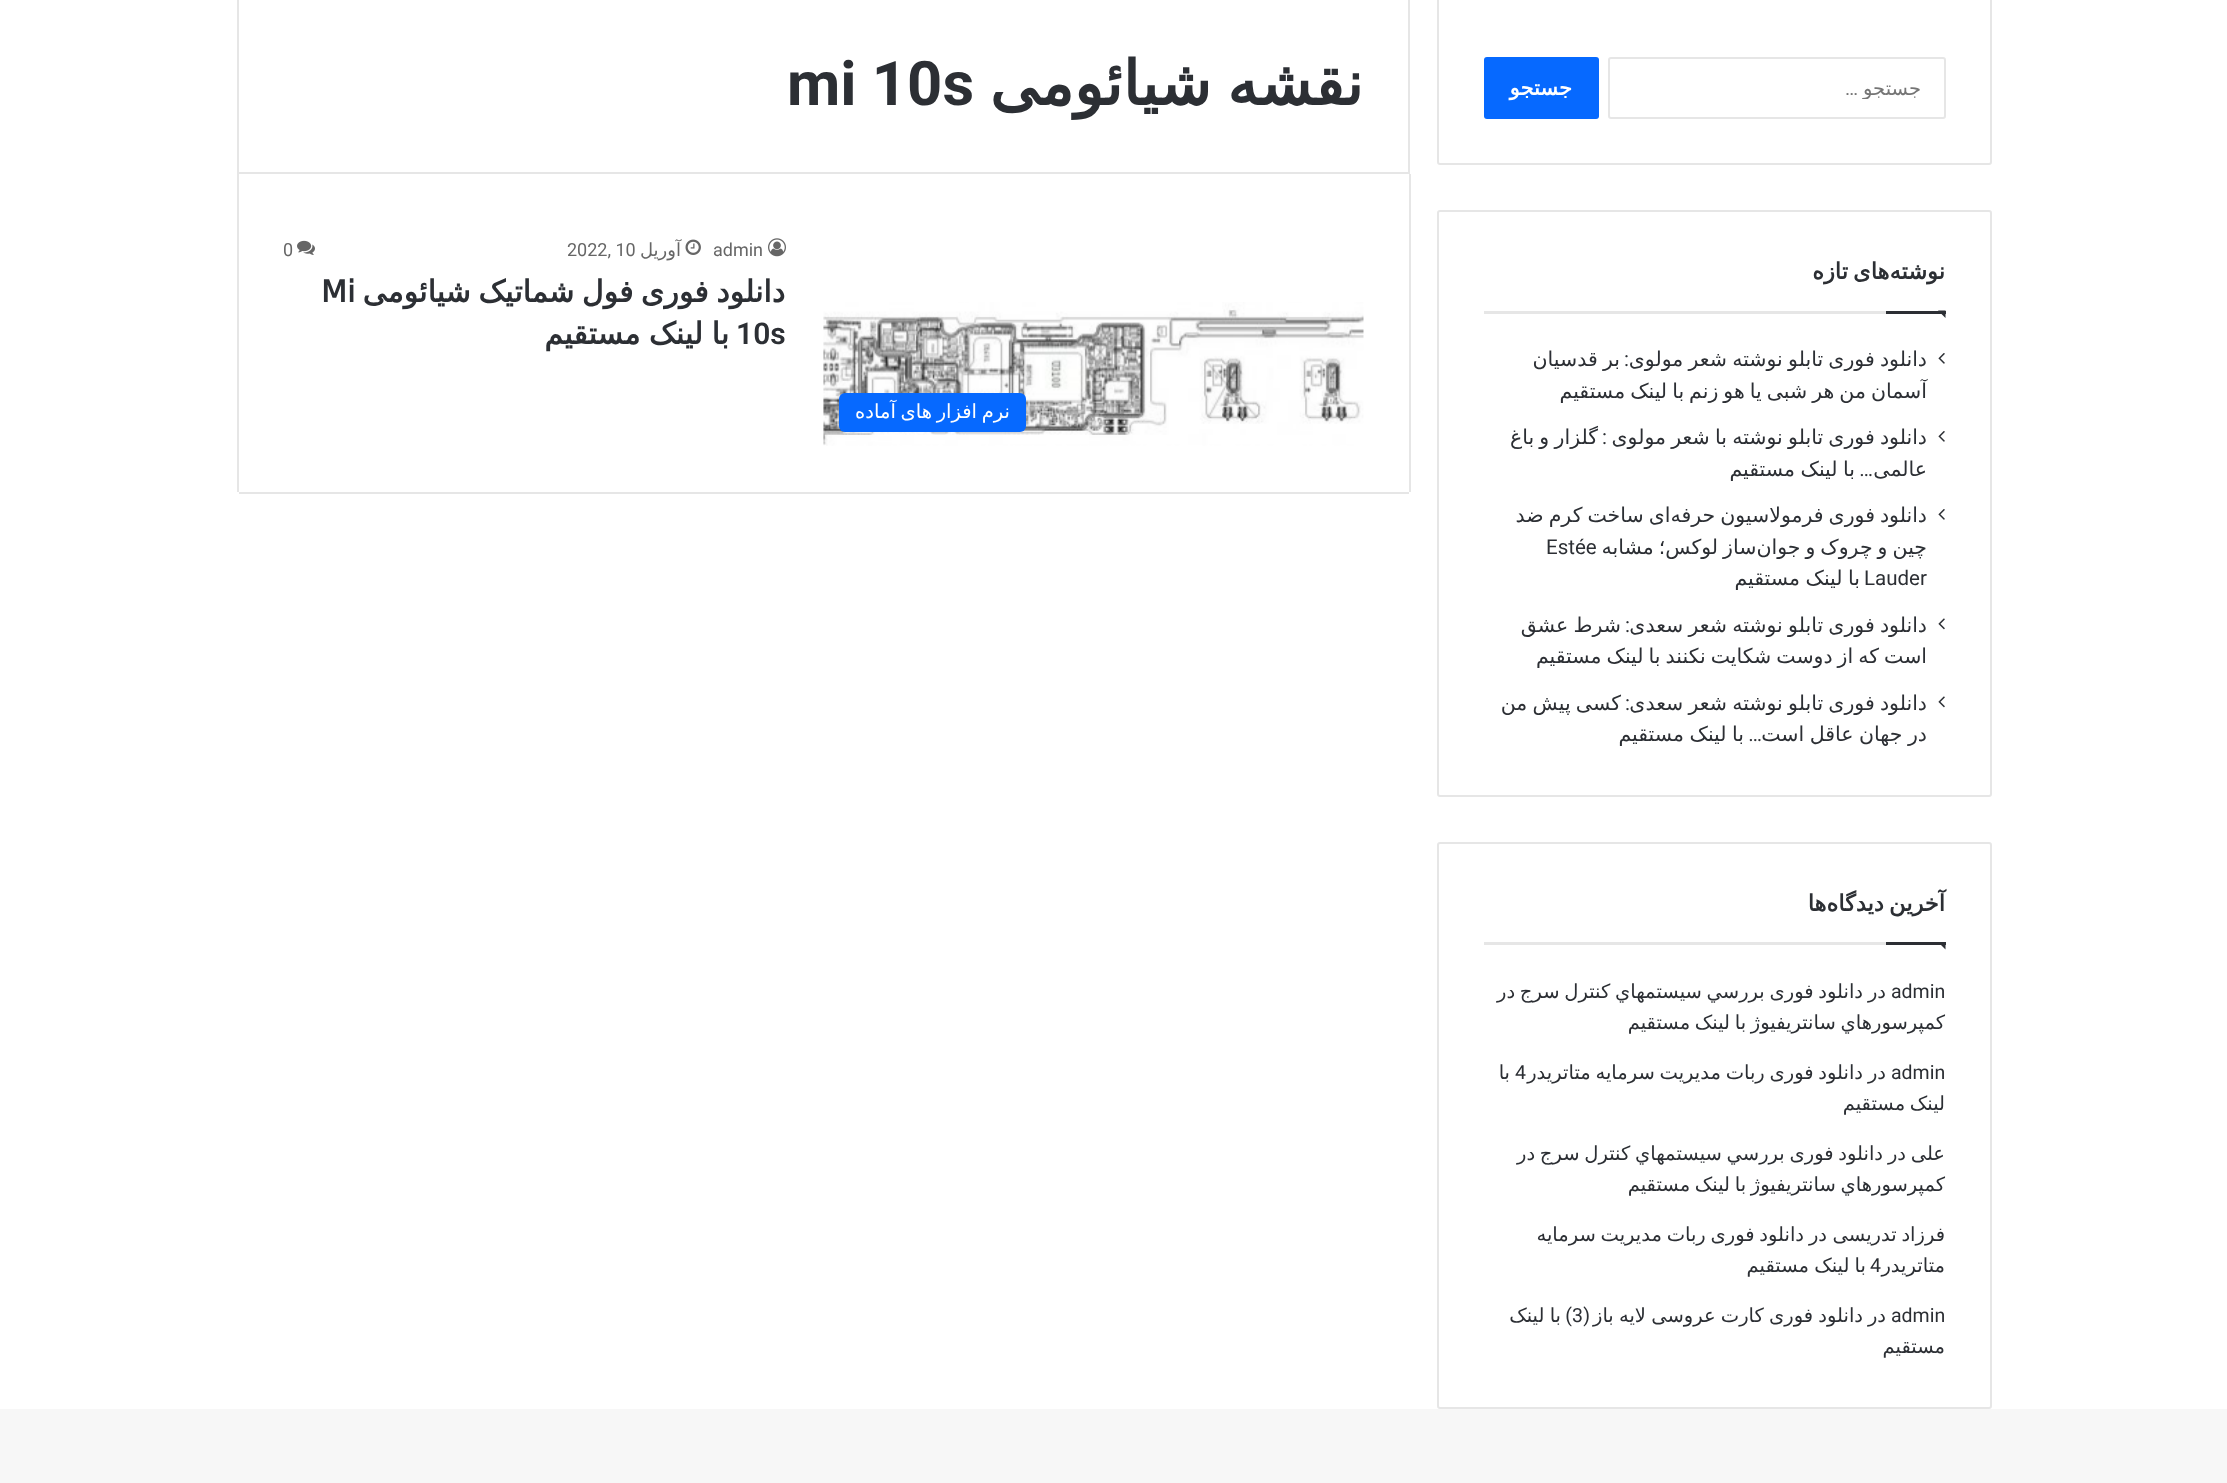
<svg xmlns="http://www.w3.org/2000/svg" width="2227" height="1483">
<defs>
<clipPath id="clip1"><rect x="1638" y="77" width="284" height="22"/></clipPath>
<clipPath id="clip2"><rect x="284" y="234" width="502" height="32"/></clipPath>
</defs>
<rect width="100%" height="100%" fill="#f7f7f7"/>
<rect width="2227" height="1409" fill="#fff"/>
<rect x="1438" y="-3" width="553" height="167" rx="2" fill="none" stroke="#e6e6e6" stroke-width="2"/>
<rect x="1609" y="58" width="336" height="60" rx="2" fill="none" stroke="#e6e6e6" stroke-width="2"/>
<g clip-path="url(#clip1)">
<text x="1921" y="95" style="font-family:DejaVu Sans;font-size:19.5px;direction:rtl;fill:#757575">جستجو</text>
</g>
<text x="1858" y="95" style="font-family:Roboto;font-size:19.5px;direction:rtl;fill:#757575">…</text>
<rect x="1484" y="57" width="115" height="62" rx="3" fill="#0669ff"/>
<text x="1572" y="95" style="font-family:DejaVu Sans;font-size:21px;font-weight:bold;direction:rtl;fill:#fff">جستجو</text>
<rect x="1438" y="211" width="553" height="585" rx="2" fill="none" stroke="#e6e6e6" stroke-width="2"/>
<rect x="1484" y="311" width="402" height="3" fill="#e6e6e6"/>
<text x="1945" y="279" word-spacing="-2" style="font-family:DejaVu Sans;font-size:22.5px;font-weight:bold;direction:rtl;fill:#2c2f34">نوشته‌های تازه</text>
<path d="M1938 310.5h7.5v7.5z" fill="#2c2f34"/>
<rect x="1886" y="311" width="60" height="3" fill="#2c2f34"/>
<image x="1938" y="353" width="7" height="11" href="media/1.png"/>
<text x="1927" y="366" word-spacing="-1.25" style="font-family:DejaVu Sans;font-size:20.5px;direction:rtl;fill:#2c2f34">دانلود فوری تابلو نوشته شعر مولوی</text>
<text x="1629" y="366" style="font-family:Roboto;font-size:20.5px;direction:rtl;fill:#2c2f34">:</text>
<text x="1620" y="366" word-spacing="-1.25" style="font-family:DejaVu Sans;font-size:20.5px;direction:rtl;fill:#2c2f34">بر قدسیان</text>
<text x="1927" y="398" word-spacing="-1.5" style="font-family:DejaVu Sans;font-size:20.5px;direction:rtl;fill:#2c2f34">آسمان من هر شبی یا هو زنم با لینک مستقیم</text>
<image x="1938" y="431" width="7" height="11" href="media/1.png"/>
<text x="1927" y="444" word-spacing="-1.25" style="font-family:DejaVu Sans;font-size:20.5px;direction:rtl;fill:#2c2f34">دانلود فوری تابلو نوشته با شعر مولوی</text>
<text x="1607" y="444" style="font-family:Roboto;font-size:20.5px;direction:rtl;fill:#2c2f34">:</text>
<text x="1598" y="444" word-spacing="-1.25" style="font-family:DejaVu Sans;font-size:20.5px;direction:rtl;fill:#2c2f34">گلزار و باغ</text>
<text x="1927" y="476" style="font-family:DejaVu Sans;font-size:20.5px;direction:rtl;fill:#2c2f34">عالمی</text>
<text x="1873" y="476" style="font-family:Roboto;font-size:20.5px;direction:rtl;fill:#2c2f34">…</text>
<text x="1855" y="476" word-spacing="-1" style="font-family:DejaVu Sans;font-size:20.5px;direction:rtl;fill:#2c2f34">با لینک مستقیم</text>
<image x="1938" y="509" width="7" height="11" href="media/1.png"/>
<text x="1927" y="522" word-spacing="-1.5" style="font-family:DejaVu Sans;font-size:20.5px;direction:rtl;fill:#2c2f34">دانلود فوری فرمولاسیون حرفه‌ای ساخت کرم ضد</text>
<text x="1927" y="554" word-spacing="-1.5" style="font-family:DejaVu Sans;font-size:20.5px;direction:rtl;fill:#2c2f34">چین و چروک و جوان‌ساز لوکس؛ مشابه</text>
<text x="1546" y="554" style="font-family:Roboto;font-size:20.5px;fill:#2c2f34">Estée</text>
<text x="1864" y="585" style="font-family:Roboto;font-size:20.5px;fill:#2c2f34">Lauder</text>
<text x="1860" y="585" word-spacing="-1" style="font-family:DejaVu Sans;font-size:20.5px;direction:rtl;fill:#2c2f34">با لینک مستقیم</text>
<image x="1938" y="618" width="7" height="12" href="media/2.png"/>
<text x="1927" y="632" word-spacing="-1.25" style="font-family:DejaVu Sans;font-size:20.5px;direction:rtl;fill:#2c2f34">دانلود فوری تابلو نوشته شعر سعدی</text>
<text x="1630" y="632" style="font-family:Roboto;font-size:20.5px;direction:rtl;fill:#2c2f34">:</text>
<text x="1621" y="632" word-spacing="-1.25" style="font-family:DejaVu Sans;font-size:20.5px;direction:rtl;fill:#2c2f34">شرط عشق</text>
<text x="1927" y="663" word-spacing="-1.5" style="font-family:DejaVu Sans;font-size:20.5px;direction:rtl;fill:#2c2f34">است که از دوست شکایت نکنند با لینک مستقیم</text>
<image x="1938" y="696" width="7" height="12" href="media/2.png"/>
<text x="1927" y="710" word-spacing="-1.25" style="font-family:DejaVu Sans;font-size:20.5px;direction:rtl;fill:#2c2f34">دانلود فوری تابلو نوشته شعر سعدی</text>
<text x="1630" y="710" style="font-family:Roboto;font-size:20.5px;direction:rtl;fill:#2c2f34">:</text>
<text x="1621" y="710" word-spacing="-1.25" style="font-family:DejaVu Sans;font-size:20.5px;direction:rtl;fill:#2c2f34">کسی پیش من</text>
<text x="1927" y="741" word-spacing="-1" style="font-family:DejaVu Sans;font-size:20.5px;direction:rtl;fill:#2c2f34">در جهان عاقل است</text>
<text x="1762" y="741" style="font-family:Roboto;font-size:20.5px;direction:rtl;fill:#2c2f34">…</text>
<text x="1744" y="741" word-spacing="-1" style="font-family:DejaVu Sans;font-size:20.5px;direction:rtl;fill:#2c2f34">با لینک مستقیم</text>
<rect x="1438" y="843" width="553" height="565" rx="2" fill="none" stroke="#e6e6e6" stroke-width="2"/>
<rect x="1484" y="942" width="402" height="3" fill="#e6e6e6"/>
<text x="1945" y="911" word-spacing="-2" style="font-family:DejaVu Sans;font-size:22.5px;font-weight:bold;direction:rtl;fill:#2c2f34">آخرین دیدگاه‌ها</text>
<path d="M1938 942h7.5v7.5z" fill="#2c2f34"/>
<rect x="1886" y="942" width="60" height="3" fill="#2c2f34"/>
<text x="1891" y="998" style="font-family:Roboto;font-size:19.5px;fill:#2c2f34">admin</text>
<text x="1886" y="998" style="font-family:DejaVu Sans;font-size:19.5px;direction:rtl;fill:#2c2f34">در</text>
<text x="1863" y="998" word-spacing="-1.5" style="font-family:DejaVu Sans;font-size:19.5px;direction:rtl;fill:#2c2f34">دانلود فوری بررسي سيستمهاي كنترل سرج در</text>
<text x="1945" y="1029" word-spacing="-1.5" style="font-family:DejaVu Sans;font-size:19.5px;direction:rtl;fill:#2c2f34">كمپرسورهاي سانتريفيوژ با لینک مستقیم</text>
<text x="1891" y="1079" style="font-family:Roboto;font-size:19.5px;fill:#2c2f34">admin</text>
<text x="1886" y="1079" style="font-family:DejaVu Sans;font-size:19.5px;direction:rtl;fill:#2c2f34">در</text>
<text x="1515" y="1079" style="font-family:Roboto;font-size:19.5px;fill:#2c2f34">4</text>
<text x="1863" y="1079" word-spacing="-1.5" style="font-family:DejaVu Sans;font-size:19.5px;direction:rtl;fill:#2c2f34">دانلود فوری ربات مدیریت سرمایه متاتریدر</text>
<text x="1510" y="1079" style="font-family:DejaVu Sans;font-size:19.5px;direction:rtl;fill:#2c2f34">با</text>
<text x="1945" y="1110" word-spacing="-1.5" style="font-family:DejaVu Sans;font-size:19.5px;direction:rtl;fill:#2c2f34">لینک مستقیم</text>
<text x="1945" y="1160" style="font-family:DejaVu Sans;font-size:19.5px;direction:rtl;fill:#2c2f34">علی</text>
<text x="1906" y="1160" style="font-family:DejaVu Sans;font-size:19.5px;direction:rtl;fill:#2c2f34">در</text>
<text x="1883" y="1160" word-spacing="-1.5" style="font-family:DejaVu Sans;font-size:19.5px;direction:rtl;fill:#2c2f34">دانلود فوری بررسي سيستمهاي كنترل سرج در</text>
<text x="1945" y="1191" word-spacing="-1.5" style="font-family:DejaVu Sans;font-size:19.5px;direction:rtl;fill:#2c2f34">كمپرسورهاي سانتريفيوژ با لینک مستقیم</text>
<text x="1945" y="1241" word-spacing="-1.5" style="font-family:DejaVu Sans;font-size:19.5px;direction:rtl;fill:#2c2f34">فرزاد تدریسی</text>
<text x="1827" y="1241" style="font-family:DejaVu Sans;font-size:19.5px;direction:rtl;fill:#2c2f34">در</text>
<text x="1804" y="1241" word-spacing="-1.5" style="font-family:DejaVu Sans;font-size:19.5px;direction:rtl;fill:#2c2f34">دانلود فوری ربات مدیریت سرمایه</text>
<text x="1870" y="1272" style="font-family:Roboto;font-size:19.5px;fill:#2c2f34">4</text>
<text x="1945" y="1272" style="font-family:DejaVu Sans;font-size:19.5px;direction:rtl;fill:#2c2f34">متاتریدر</text>
<text x="1866" y="1272" word-spacing="-1" style="font-family:DejaVu Sans;font-size:19.5px;direction:rtl;fill:#2c2f34">با لینک مستقیم</text>
<text x="1891" y="1322" style="font-family:Roboto;font-size:19.5px;fill:#2c2f34">admin</text>
<text x="1886" y="1322" style="font-family:DejaVu Sans;font-size:19.5px;direction:rtl;fill:#2c2f34">در</text>
<text x="1863" y="1322" word-spacing="-1" style="font-family:DejaVu Sans;font-size:19.5px;direction:rtl;fill:#2c2f34">دانلود فوری کارت عروسی لایه باز</text>
<text x="1590" y="1322" style="font-family:Roboto;font-size:19.5px;direction:rtl;fill:#2c2f34">(</text>
<text x="1572" y="1322" style="font-family:Roboto;font-size:19.5px;fill:#2c2f34">3</text>
<text x="1572" y="1322" style="font-family:Roboto;font-size:19.5px;direction:rtl;fill:#2c2f34">)</text>
<text x="1561" y="1322" word-spacing="-1" style="font-family:DejaVu Sans;font-size:19.5px;direction:rtl;fill:#2c2f34">با لینک</text>
<text x="1945" y="1353" style="font-family:DejaVu Sans;font-size:19.5px;direction:rtl;fill:#2c2f34">مستقیم</text>
<rect x="238" y="-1" width="1171" height="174" fill="none" stroke="#e6e6e6" stroke-width="2"/>
<text x="1363" y="105" word-spacing="-4" style="font-family:DejaVu Sans;font-size:61.5px;font-weight:bold;direction:rtl;fill:#2c2f34">نقشه شیائومی</text>
<text x="787" y="105" style="font-family:Roboto;font-size:61.5px;font-weight:bold;fill:#2c2f34">mi 10s</text>
<rect x="1409" y="174" width="2" height="318" fill="#e6e6e6"/>
<rect x="239" y="492" width="1170" height="2" fill="#e6e6e6"/>
<rect x="237" y="174" width="2" height="318" fill="#e6e6e6"/>
<image x="768" y="238" width="18" height="19" href="media/3.png"/>
<text x="713" y="256" style="font-family:Roboto;font-size:18px;fill:#666">admin</text>
<image x="685" y="239" width="16" height="16" href="media/4.png"/>
<text x="681" y="256" style="font-family:DejaVu Sans;font-size:18px;direction:rtl;fill:#666">آوریل</text>
<text x="567" y="256" style="font-family:Roboto;font-size:18px;fill:#666">2022, 10</text>
<image x="297" y="240" width="18" height="15" href="media/5.png"/>
<g clip-path="url(#clip2)">
<text x="283" y="256" style="font-family:Roboto;font-size:18px;fill:#666">0</text>
</g>
<text x="785" y="302" word-spacing="-2" style="font-family:DejaVu Sans;font-size:30px;font-weight:bold;direction:rtl;fill:#2c2f34">دانلود فوری فول شماتیک شیائومی</text>
<text x="321" y="302" style="font-family:DejaVu Sans;font-size:30px;font-weight:bold;fill:#2c2f34">Mi</text>
<text x="736" y="344" style="font-family:Roboto;font-size:30px;font-weight:600;fill:#2c2f34">10s</text>
<text x="729" y="344" word-spacing="-1" style="font-family:DejaVu Sans;font-size:30px;font-weight:bold;direction:rtl;fill:#2c2f34">با لینک مستقیم</text>
<image x="823" y="302" width="541" height="144" href="media/6.png"/>
<rect x="839" y="393" width="187" height="39" rx="6" fill="#0669ff"/>
<text x="1010" y="418" word-spacing="-1.5" style="font-family:DejaVu Sans;font-size:19.5px;direction:rtl;fill:#fff">نرم افزار های آماده</text>
</svg>
